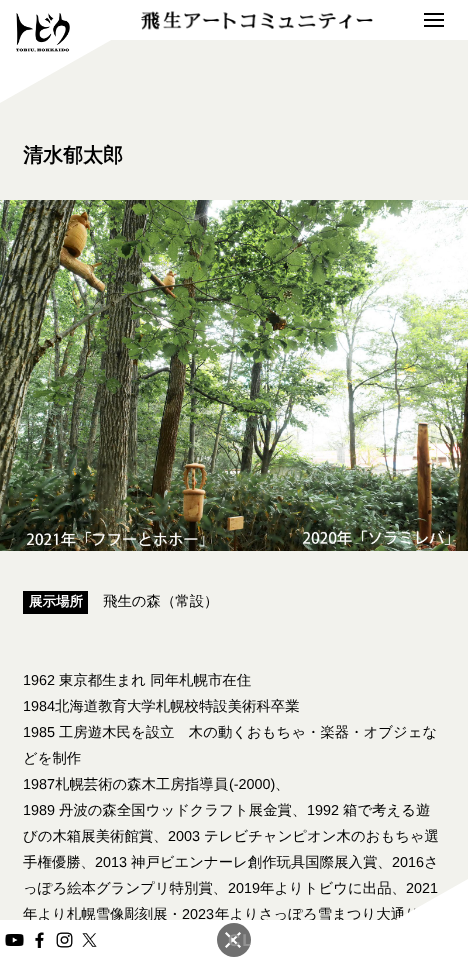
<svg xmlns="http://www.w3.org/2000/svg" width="468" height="960">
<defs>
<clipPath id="clip1"><rect x="217" y="923" width="34" height="34" rx="17"/></clipPath>
</defs>
<rect width="100%" height="100%" fill="#fff"/>
<rect y="40" width="468" height="880" fill="#f2f2ed"/>
<path d="M0 0h182l-182 103z" fill="#fff"/>
<image x="141" y="11" width="232" height="19" href="media/1.png"/>
<image x="16" y="13" width="54" height="39" href="media/2.png"/>
<rect x="424" y="19" width="20" height="2" fill="#000"/>
<rect x="424" y="13" width="20" height="2" fill="#000"/>
<rect x="424" y="25" width="20" height="2" fill="#000"/>
<text x="23" y="162" style="font-family:WenQuanYi Zen Hei;font-size:20px;font-weight:bold;fill:#000">清水郁太郎</text>
<image x="0" y="200" width="468" height="351" href="media/3.png"/>
<rect x="23" y="591" width="65" height="23" fill="#000"/>
<text x="29" y="606" style="font-family:WenQuanYi Zen Hei;font-size:13.5px;font-weight:bold;fill:#fff">展示場所</text>
<text x="103" y="606" style="font-family:WenQuanYi Zen Hei;font-size:14.4px;font-weight:500;fill:#000">飛生の森（常設）</text>
<text x="23" y="685" style="font-family:Liberation Sans;font-size:14.4px;fill:#000">1962</text>
<text x="59" y="685" style="font-family:WenQuanYi Zen Hei;font-size:14.4px;font-weight:500;fill:#000">東京都生まれ 同年札幌市在住</text>
<text x="23" y="711" style="font-family:Liberation Sans;font-size:14.4px;fill:#000">1984</text>
<text x="55" y="711" style="font-family:WenQuanYi Zen Hei;font-size:14.4px;font-weight:500;fill:#000">北海道教育大学札幌校特設美術科卒業</text>
<text x="23" y="737" style="font-family:Liberation Sans;font-size:14.4px;fill:#000">1985</text>
<text x="59" y="737" style="font-family:WenQuanYi Zen Hei;font-size:14.4px;font-weight:500;fill:#000">工房遊木民を設立　木の動くおもちゃ・楽器・オブジェな</text>
<text x="23" y="763" style="font-family:WenQuanYi Zen Hei;font-size:14.4px;font-weight:500;fill:#000">どを制作</text>
<text x="23" y="789" style="font-family:Liberation Sans;font-size:14.4px;fill:#000">1987</text>
<text x="55" y="789" style="font-family:WenQuanYi Zen Hei;font-size:14.4px;font-weight:500;fill:#000">札幌芸術の森木工房指導員</text>
<text x="229" y="789" style="font-family:Liberation Sans;font-size:14.4px;fill:#000">(-2000)</text>
<text x="275" y="789" style="font-family:WenQuanYi Zen Hei;font-size:14.4px;font-weight:500;fill:#000">、</text>
<text x="23" y="815" style="font-family:Liberation Sans;font-size:14.4px;fill:#000">1989</text>
<text x="59" y="815" style="font-family:WenQuanYi Zen Hei;font-size:14.4px;font-weight:500;fill:#000">丹波の森全国ウッドクラフト展金賞、</text>
<text x="307" y="815" style="font-family:Liberation Sans;font-size:14.4px;fill:#000">1992</text>
<text x="343" y="815" style="font-family:WenQuanYi Zen Hei;font-size:14.4px;font-weight:500;fill:#000">箱で考える遊</text>
<text x="23" y="841" style="font-family:WenQuanYi Zen Hei;font-size:14.4px;font-weight:500;fill:#000">びの木箱展美術館賞、</text>
<text x="168" y="841" style="font-family:Liberation Sans;font-size:14.4px;fill:#000">2003</text>
<text x="204" y="841" style="font-family:WenQuanYi Zen Hei;font-size:14.4px;font-weight:500;fill:#000">テレビチャンピオン木のおもちゃ選</text>
<text x="23" y="867" style="font-family:WenQuanYi Zen Hei;font-size:14.4px;font-weight:500;fill:#000">手権優勝、</text>
<text x="95" y="867" style="font-family:Liberation Sans;font-size:14.4px;fill:#000">2013</text>
<text x="131" y="867" style="font-family:WenQuanYi Zen Hei;font-size:14.4px;font-weight:500;fill:#000">神戸ビエンナーレ創作玩具国際展入賞、</text>
<text x="392" y="867" style="font-family:Liberation Sans;font-size:14.4px;fill:#000">2016</text>
<text x="424" y="867" style="font-family:WenQuanYi Zen Hei;font-size:14.4px;font-weight:500;fill:#000">さ</text>
<text x="23" y="893" style="font-family:WenQuanYi Zen Hei;font-size:14.4px;font-weight:500;fill:#000">っぽろ絵本グランプリ特別賞、</text>
<text x="228" y="893" style="font-family:Liberation Sans;font-size:14.4px;fill:#000">2019</text>
<text x="260" y="893" style="font-family:WenQuanYi Zen Hei;font-size:14.4px;font-weight:500;fill:#000">年よりトビウに出品、</text>
<text x="406" y="893" style="font-family:Liberation Sans;font-size:14.4px;fill:#000">2021</text>
<text x="23" y="919" style="font-family:WenQuanYi Zen Hei;font-size:14.4px;font-weight:500;fill:#000">年より札幌雪像彫刻展・</text>
<text x="182" y="919" style="font-family:Liberation Sans;font-size:14.4px;fill:#000">2023</text>
<text x="215" y="919" style="font-family:WenQuanYi Zen Hei;font-size:14.4px;font-weight:500;fill:#000">年よりさっぽろ雪まつり大通り</text>
<rect x="30" y="920" width="360" height="2" fill="#fff"/>
<circle cx="234" cy="940" r="17" fill="#707070"/>
<path d="M226.5 932l14.5 14.5l-1.5 1.5l-14.5-14.5z" fill="#fff"/>
<path d="M241 933.5l-14.5 14.5l-1.5-1.5l14.5-14.5z" fill="#fff"/>
<g clip-path="url(#clip1)">
<text x="228" y="946" style="font-family:Liberation Sans;font-size:17px;font-weight:bold;letter-spacing:2px;fill:#939393">CL</text>
</g>
<image x="5" y="934" width="19" height="12" href="media/4.png"/>
<image x="35" y="932" width="9" height="16" href="media/5.png"/>
<image x="56" y="932" width="17" height="16" href="media/6.png"/>
<image x="82" y="933" width="15" height="14" href="media/7.png"/>
<path d="M468 960h-143l143-81z" fill="#fff"/>
</svg>
